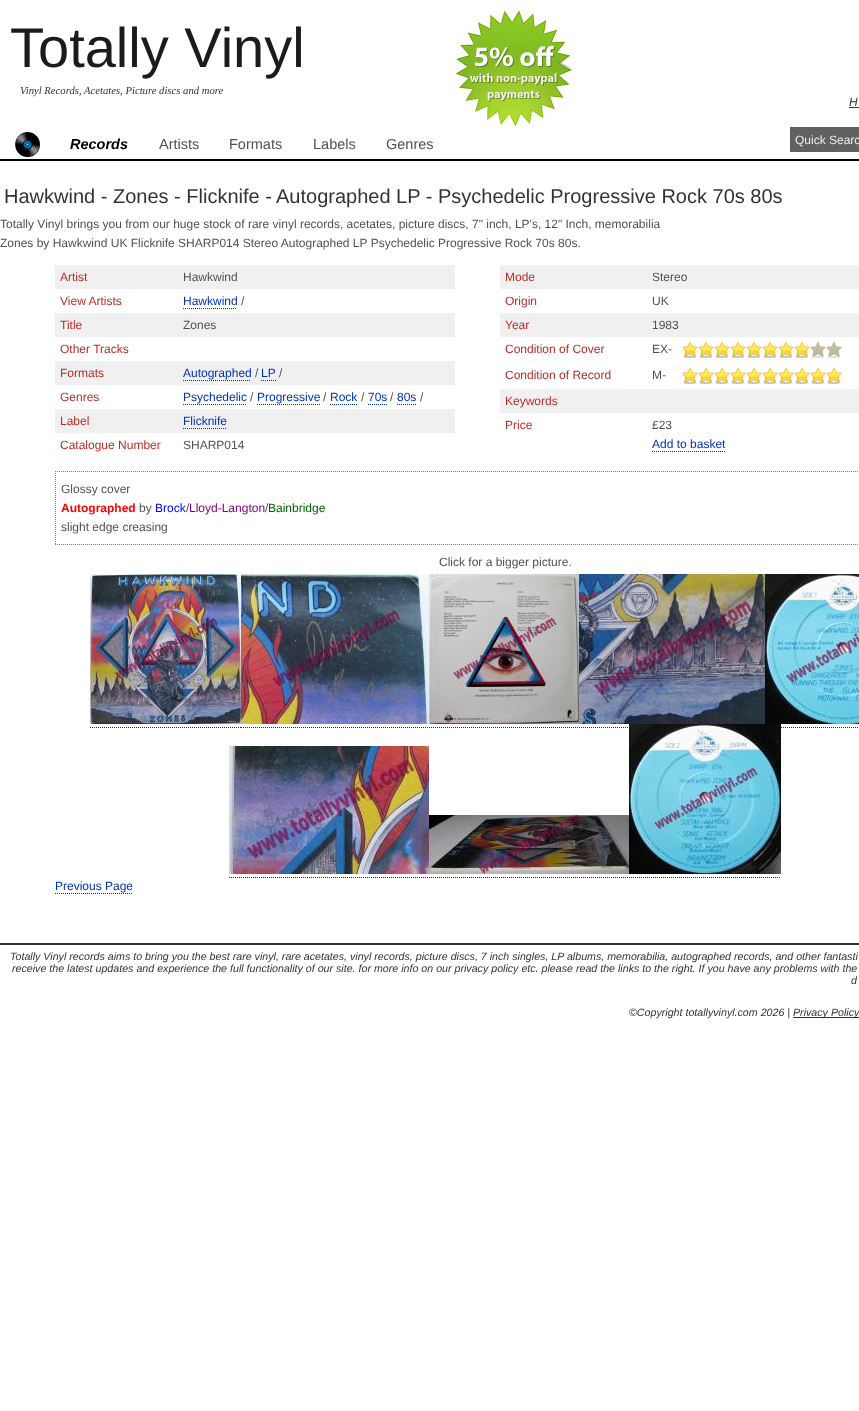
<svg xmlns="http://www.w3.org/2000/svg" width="859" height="1411">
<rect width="100%" height="100%" fill="#fff"/>
<image x="455" y="10" width="120" height="117" href="media/1.png"/>
<text x="10" y="67" style="font-family:Liberation Sans;font-size:56px;fill:#1b1b1b">Totally Vinyl</text>
<text x="20" y="94" style="font-family:Liberation Serif;font-size:10.67px;font-style:italic;fill:#333">Vinyl Records, Acetates, Picture discs and more</text>
<text x="849" y="106" style="font-family:Liberation Sans;font-size:12px;font-style:italic;fill:#333">H</text>
<rect x="849" y="107" width="10" height="1" fill="#333"/>
<rect y="159" width="859" height="2" fill="#000"/>
<image x="15" y="132" width="25" height="25" href="media/2.png"/>
<text x="70" y="149" style="font-family:Liberation Sans;font-size:14.5px;font-weight:bold;font-style:italic;fill:#000">Records</text>
<text x="159" y="149" style="font-family:Liberation Sans;font-size:14.5px;fill:#515151">Artists</text>
<text x="229" y="149" style="font-family:Liberation Sans;font-size:14.5px;fill:#515151">Formats</text>
<text x="313" y="149" style="font-family:Liberation Sans;font-size:14.5px;fill:#515151">Labels</text>
<text x="386" y="149" style="font-family:Liberation Sans;font-size:14.5px;fill:#515151">Genres</text>
<rect x="790" y="127" width="69" height="25" fill="#616161"/>
<text x="795" y="144" style="font-family:Liberation Sans;font-size:12px;fill:#eeeee8">Quick Searc</text>
<text x="4" y="203" style="font-family:Liberation Sans;font-size:20px;fill:#333">Hawkwind - Zones - Flicknife -</text>
<text x="276" y="203" style="font-family:Liberation Sans;font-size:20px;fill:#333">Autographed LP - Psychedelic Progressive Rock 70s 80s</text>
<text x="0" y="228" style="font-family:Liberation Sans;font-size:12px;fill:#515151">Totally Vinyl brings you from our huge stock of rare vinyl records, acetates, picture discs, 7" inch, LP's, 12" Inch, memorabilia</text>
<text x="0" y="247" style="font-family:Liberation Sans;font-size:12px;fill:#515151">Zones by Hawkwind UK Flicknife SHARP014 Stereo Autographed LP Psychedelic Progressive Rock 70s 80s.</text>
<rect x="55" y="265" width="400" height="24" fill="#f0f0f0"/>
<text x="60" y="281" style="font-family:Liberation Sans;font-size:12px;fill:#ba2d27">Artist</text>
<text x="183" y="281" style="font-family:Liberation Sans;font-size:12px;fill:#515151">Hawkwind</text>
<text x="60" y="305" style="font-family:Liberation Sans;font-size:12px;fill:#ba2d27">View Artists</text>
<text x="183" y="305" style="font-family:Liberation Sans;font-size:12px;fill:#03b">Hawkwind</text>
<path d="M183 308.5h54" fill="none" stroke="#03b" stroke-dasharray="1 1"/>
<text x="241" y="305" style="font-family:Liberation Sans;font-size:12px;fill:#515151">/</text>
<rect x="55" y="313" width="400" height="24" fill="#f0f0f0"/>
<text x="60" y="329" style="font-family:Liberation Sans;font-size:12px;fill:#ba2d27">Title</text>
<text x="183" y="329" style="font-family:Liberation Sans;font-size:12px;fill:#515151">Zones</text>
<text x="60" y="353" style="font-family:Liberation Sans;font-size:12px;fill:#ba2d27">Other Tracks</text>
<rect x="55" y="361" width="400" height="24" fill="#f0f0f0"/>
<text x="60" y="377" style="font-family:Liberation Sans;font-size:12px;fill:#ba2d27">Formats</text>
<text x="183" y="377" style="font-family:Liberation Sans;font-size:12px;fill:#03b">Autographed</text>
<path d="M183 380.5h68" fill="none" stroke="#03b" stroke-dasharray="1 1"/>
<text x="255" y="377" style="font-family:Liberation Sans;font-size:12px;fill:#515151">/</text>
<text x="261" y="377" style="font-family:Liberation Sans;font-size:12px;fill:#03b">LP</text>
<path d="M261 380.5h15" fill="none" stroke="#03b" stroke-dasharray="1 1"/>
<text x="279" y="377" style="font-family:Liberation Sans;font-size:12px;fill:#515151">/</text>
<text x="60" y="401" style="font-family:Liberation Sans;font-size:12px;fill:#ba2d27">Genres</text>
<text x="183" y="401" style="font-family:Liberation Sans;font-size:12px;fill:#03b">Psychedelic</text>
<path d="M183 404.5h64" fill="none" stroke="#03b" stroke-dasharray="1 1"/>
<text x="250" y="401" style="font-family:Liberation Sans;font-size:12px;fill:#515151">/</text>
<text x="257" y="401" style="font-family:Liberation Sans;font-size:12px;fill:#03b">Progressive</text>
<path d="M257 404.5h63" fill="none" stroke="#03b" stroke-dasharray="1 1"/>
<text x="323" y="401" style="font-family:Liberation Sans;font-size:12px;fill:#515151">/</text>
<text x="330" y="401" style="font-family:Liberation Sans;font-size:12px;fill:#03b">Rock</text>
<path d="M330 404.5h27" fill="none" stroke="#03b" stroke-dasharray="1 1"/>
<text x="361" y="401" style="font-family:Liberation Sans;font-size:12px;fill:#515151">/</text>
<text x="368" y="401" style="font-family:Liberation Sans;font-size:12px;fill:#03b">70s</text>
<path d="M368 404.5h19" fill="none" stroke="#03b" stroke-dasharray="1 1"/>
<text x="390" y="401" style="font-family:Liberation Sans;font-size:12px;fill:#515151">/</text>
<text x="397" y="401" style="font-family:Liberation Sans;font-size:12px;fill:#03b">80s</text>
<path d="M397 404.5h19" fill="none" stroke="#03b" stroke-dasharray="1 1"/>
<text x="420" y="401" style="font-family:Liberation Sans;font-size:12px;fill:#515151">/</text>
<rect x="55" y="409" width="400" height="24" fill="#f0f0f0"/>
<text x="60" y="425" style="font-family:Liberation Sans;font-size:12px;fill:#ba2d27">Label</text>
<text x="183" y="425" style="font-family:Liberation Sans;font-size:12px;fill:#03b">Flicknife</text>
<path d="M183 428.5h44" fill="none" stroke="#03b" stroke-dasharray="1 1"/>
<text x="60" y="449" style="font-family:Liberation Sans;font-size:12px;fill:#ba2d27">Catalogue Number</text>
<text x="183" y="449" style="font-family:Liberation Sans;font-size:12px;fill:#515151">SHARP014</text>
<rect x="500" y="265" width="359" height="24" fill="#f0f0f0"/>
<text x="505" y="281" style="font-family:Liberation Sans;font-size:12px;fill:#ba2d27">Mode</text>
<text x="652" y="281" style="font-family:Liberation Sans;font-size:12px;fill:#515151">Stereo</text>
<text x="505" y="305" style="font-family:Liberation Sans;font-size:12px;fill:#ba2d27">Origin</text>
<text x="652" y="305" style="font-family:Liberation Sans;font-size:12px;fill:#515151">UK</text>
<rect x="500" y="313" width="359" height="24" fill="#f0f0f0"/>
<text x="505" y="329" style="font-family:Liberation Sans;font-size:12px;fill:#ba2d27">Year</text>
<text x="652" y="329" style="font-family:Liberation Sans;font-size:12px;fill:#515151">1983</text>
<text x="505" y="353" style="font-family:Liberation Sans;font-size:12px;fill:#ba2d27">Condition of Cover</text>
<text x="652" y="353" style="font-family:Liberation Sans;font-size:12px;fill:#515151">EX-</text>
<image x="682" y="342" width="16" height="16" href="media/3.png"/>
<image x="698" y="342" width="16" height="16" href="media/3.png"/>
<image x="714" y="342" width="16" height="16" href="media/3.png"/>
<image x="730" y="342" width="16" height="16" href="media/3.png"/>
<image x="746" y="342" width="16" height="16" href="media/3.png"/>
<image x="762" y="342" width="16" height="16" href="media/3.png"/>
<image x="778" y="342" width="16" height="16" href="media/3.png"/>
<image x="794" y="342" width="16" height="16" href="media/3.png"/>
<image x="810" y="342" width="16" height="16" href="media/4.png"/>
<image x="826" y="342" width="16" height="16" href="media/4.png"/>
<text x="505" y="379" style="font-family:Liberation Sans;font-size:12px;fill:#ba2d27">Condition of Record</text>
<text x="652" y="379" style="font-family:Liberation Sans;font-size:12px;fill:#515151">M-</text>
<image x="682" y="368" width="16" height="16" href="media/3.png"/>
<image x="698" y="368" width="16" height="16" href="media/3.png"/>
<image x="714" y="368" width="16" height="16" href="media/3.png"/>
<image x="730" y="368" width="16" height="16" href="media/3.png"/>
<image x="746" y="368" width="16" height="16" href="media/3.png"/>
<image x="762" y="368" width="16" height="16" href="media/3.png"/>
<image x="778" y="368" width="16" height="16" href="media/3.png"/>
<image x="794" y="368" width="16" height="16" href="media/3.png"/>
<image x="810" y="368" width="16" height="16" href="media/3.png"/>
<image x="826" y="368" width="16" height="16" href="media/3.png"/>
<rect x="500" y="389" width="359" height="24" fill="#f0f0f0"/>
<text x="505" y="405" style="font-family:Liberation Sans;font-size:12px;fill:#ba2d27">Keywords</text>
<text x="505" y="429" style="font-family:Liberation Sans;font-size:12px;fill:#ba2d27">Price</text>
<text x="652" y="429" style="font-family:Liberation Sans;font-size:12px;fill:#515151">£23</text>
<text x="652" y="448" style="font-family:Liberation Sans;font-size:12px;fill:#03b">Add to basket</text>
<path d="M652 451.5h73" fill="none" stroke="#03b" stroke-dasharray="1 1"/>
<path d="M55 471.5h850" fill="none" stroke="#808080" stroke-dasharray="1 1"/>
<path d="M55 544.5h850" fill="none" stroke="#808080" stroke-dasharray="1 1"/>
<path d="M55.5 471v74" fill="none" stroke="#808080" stroke-dasharray="1 1"/>
<text x="61" y="493" style="font-family:Liberation Sans;font-size:12px;fill:#515151">Glossy cover</text>
<text x="61" y="512" style="font-family:Liberation Sans;font-size:12px;font-weight:bold;fill:#f00">Autographed</text>
<text x="139" y="512" style="font-family:Liberation Sans;font-size:12px;fill:#515151">by</text>
<text x="155" y="512" style="font-family:Liberation Sans;font-size:12px;fill:#00f">Brock</text>
<text x="186" y="512" style="font-family:Liberation Sans;font-size:12px;fill:#515151">/</text>
<text x="189" y="512" style="font-family:Liberation Sans;font-size:12px;fill:#800080">Lloyd-Langton</text>
<text x="265" y="512" style="font-family:Liberation Sans;font-size:12px;fill:#515151">/</text>
<text x="268" y="512" style="font-family:Liberation Sans;font-size:12px;fill:#006400">Bainbridge</text>
<text x="61" y="531" style="font-family:Liberation Sans;font-size:12px;fill:#515151">slight edge creasing</text>
<text x="439" y="566" style="font-family:Liberation Sans;font-size:12px;fill:#515151">Click for a bigger picture.</text>
<image x="90" y="574" width="151" height="150" href="media/5.png"/>
<image x="241" y="574" width="188" height="150" href="media/6.png"/>
<image x="429" y="574" width="150" height="150" href="media/7.png"/>
<image x="579" y="574" width="186" height="150" href="media/8.png"/>
<image x="765" y="574" width="94" height="150" href="media/9.png"/>
<path d="M90 727.5h151" fill="none" stroke="#03b" stroke-dasharray="1 1"/>
<path d="M241 727.5h188" fill="none" stroke="#03b" stroke-dasharray="1 1"/>
<path d="M429 727.5h150" fill="none" stroke="#03b" stroke-dasharray="1 1"/>
<path d="M579 727.5h186" fill="none" stroke="#03b" stroke-dasharray="1 1"/>
<path d="M765 727.5h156" fill="none" stroke="#03b" stroke-dasharray="1 1"/>
<image x="629" y="724" width="152" height="150" href="media/10.png"/>
<image x="229" y="746" width="200" height="128" href="media/11.png"/>
<image x="429" y="815" width="200" height="59" href="media/12.png"/>
<path d="M229 877.5h200" fill="none" stroke="#03b" stroke-dasharray="1 1"/>
<path d="M429 877.5h200" fill="none" stroke="#03b" stroke-dasharray="1 1"/>
<path d="M629 877.5h152" fill="none" stroke="#03b" stroke-dasharray="1 1"/>
<text x="55" y="890" style="font-family:Liberation Sans;font-size:12px;fill:#03b">Previous Page</text>
<path d="M55 893.5h78" fill="none" stroke="#03b" stroke-dasharray="1 1"/>
<rect y="943" width="859" height="2" fill="#333"/>
<text x="10" y="960" style="font-family:Liberation Sans;font-size:10.67px;font-style:italic;fill:#333">Totally Vinyl records aims to bring you the best rare vinyl, rare acetates, vinyl records, picture discs, 7 inch singles, LP albums, memorabilia, autographed records, and other fantasti</text>
<text x="12" y="972" style="font-family:Liberation Sans;font-size:10.67px;font-style:italic;fill:#333">receive the latest updates and experience the full functionality of our site. for more info on our privacy policy etc. please read the links to the right. If you have any problems with the</text>
<text x="851" y="984" style="font-family:Liberation Sans;font-size:10.67px;font-style:italic;fill:#333">d</text>
<text x="629" y="1016" style="font-family:Liberation Sans;font-size:10.67px;font-style:italic;fill:#333">©Copyright totallyvinyl.com 2026 |</text>
<rect x="793" y="1017" width="66" height="1" fill="#333"/>
<text x="793" y="1016" style="font-family:Liberation Sans;font-size:10.67px;font-style:italic;fill:#333">Privacy Policy</text>
</svg>
